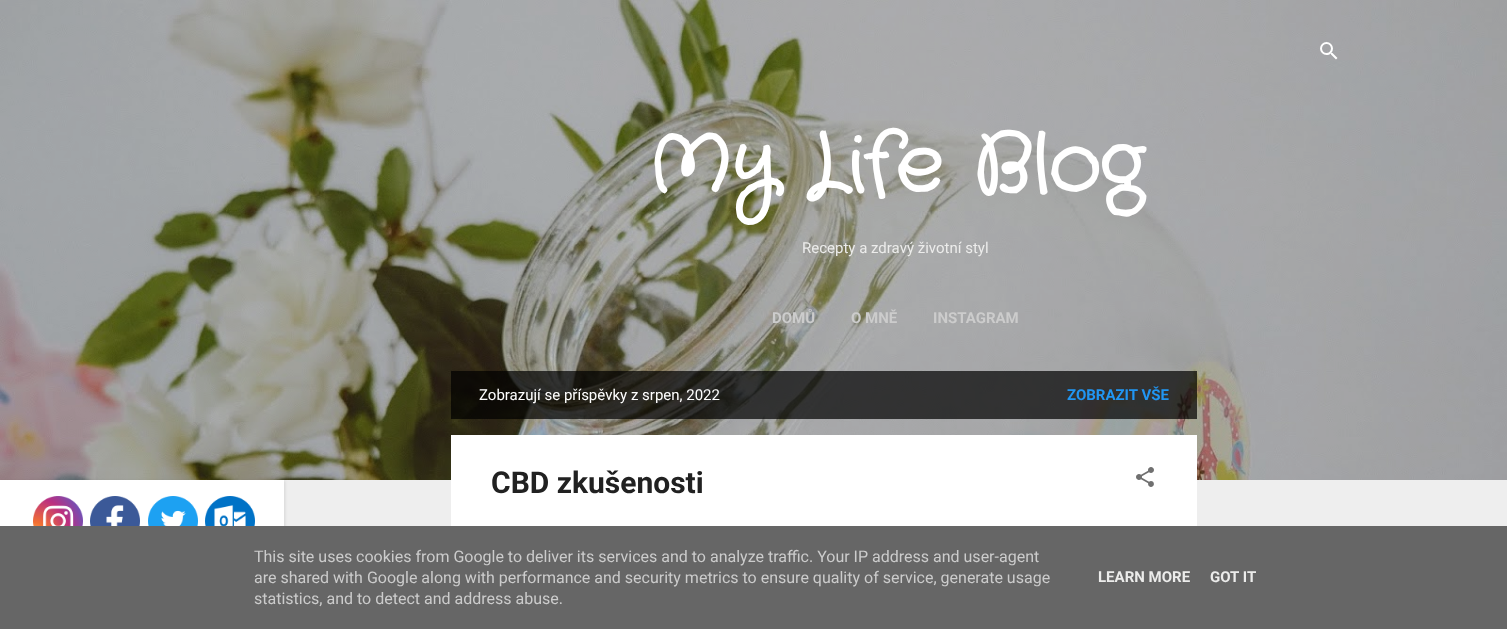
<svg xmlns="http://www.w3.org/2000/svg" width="1507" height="629">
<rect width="100%" height="100%" fill="#eee"/>
<image x="0" y="0" width="1507" height="480" href="media/1.png"/>
<image x="1320" y="42" width="18" height="18" href="media/2.png"/>
<text x="647" y="189" style="font-family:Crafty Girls;font-size:80px;font-weight:bold;fill:#fff">My Life Blog</text>
<text x="802" y="253" style="font-family:Roboto;font-size:15px;fill:#ececeb">Recepty a zdravý životní styl</text>
<text x="772" y="323" style="font-family:Roboto;font-size:15px;font-weight:bold;fill:#ccc">DOMŮ</text>
<text x="851" y="323" style="font-family:Roboto;font-size:15px;font-weight:bold;fill:#ccc">O MNĚ</text>
<text x="933" y="323" style="font-family:Roboto;font-size:15px;font-weight:bold;fill:#ccc">INSTAGRAM</text>
<rect x="451" y="371" width="746" height="48" fill="#000000b3"/>
<text x="479" y="400" style="font-family:Roboto;font-size:15px;fill:#fff">Zobrazují se příspěvky z srpen, 2022</text>
<text x="1067" y="400" style="font-family:Roboto;font-size:15px;font-weight:bold;fill:#2196f3">ZOBRAZIT VŠE</text>
<rect x="451" y="435" width="746" height="91" fill="#fff"/>
<text x="491" y="493" style="font-family:Roboto;font-size:30px;font-weight:bold;fill:#212121">CBD zkušenosti</text>
<image x="1136" y="467" width="18" height="20" href="media/3.png"/>
<rect x="1" y="481" width="284" height="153" fill="#0000001a" filter="blur(1.5px)"/>
<rect y="480" width="284" height="46" fill="#fff"/>
<image x="33" y="496" width="50" height="30" href="media/4.png"/>
<image x="90" y="496" width="50" height="30" href="media/5.png"/>
<image x="148" y="496" width="50" height="30" href="media/6.png"/>
<image x="205" y="496" width="50" height="30" href="media/7.png"/>
<rect y="526" width="1507" height="103" fill="#666"/>
<text x="254" y="562" style="font-family:Roboto;font-size:16px;fill:#ccc">This site uses cookies from Google to deliver its services and to analyze traffic. Your IP address and user-agent</text>
<text x="254" y="583" style="font-family:Roboto;font-size:16px;fill:#ccc">are shared with Google along with performance and security metrics to ensure quality of service, generate usage</text>
<text x="254" y="604" style="font-family:Roboto;font-size:16px;fill:#ccc">statistics, and to detect and address abuse.</text>
<text x="1098" y="582" style="font-family:Roboto;font-size:15px;font-weight:bold;fill:#ececeb">LEARN MORE</text>
<text x="1210" y="582" style="font-family:Roboto;font-size:15px;font-weight:bold;fill:#ececeb">GOT IT</text>
</svg>
